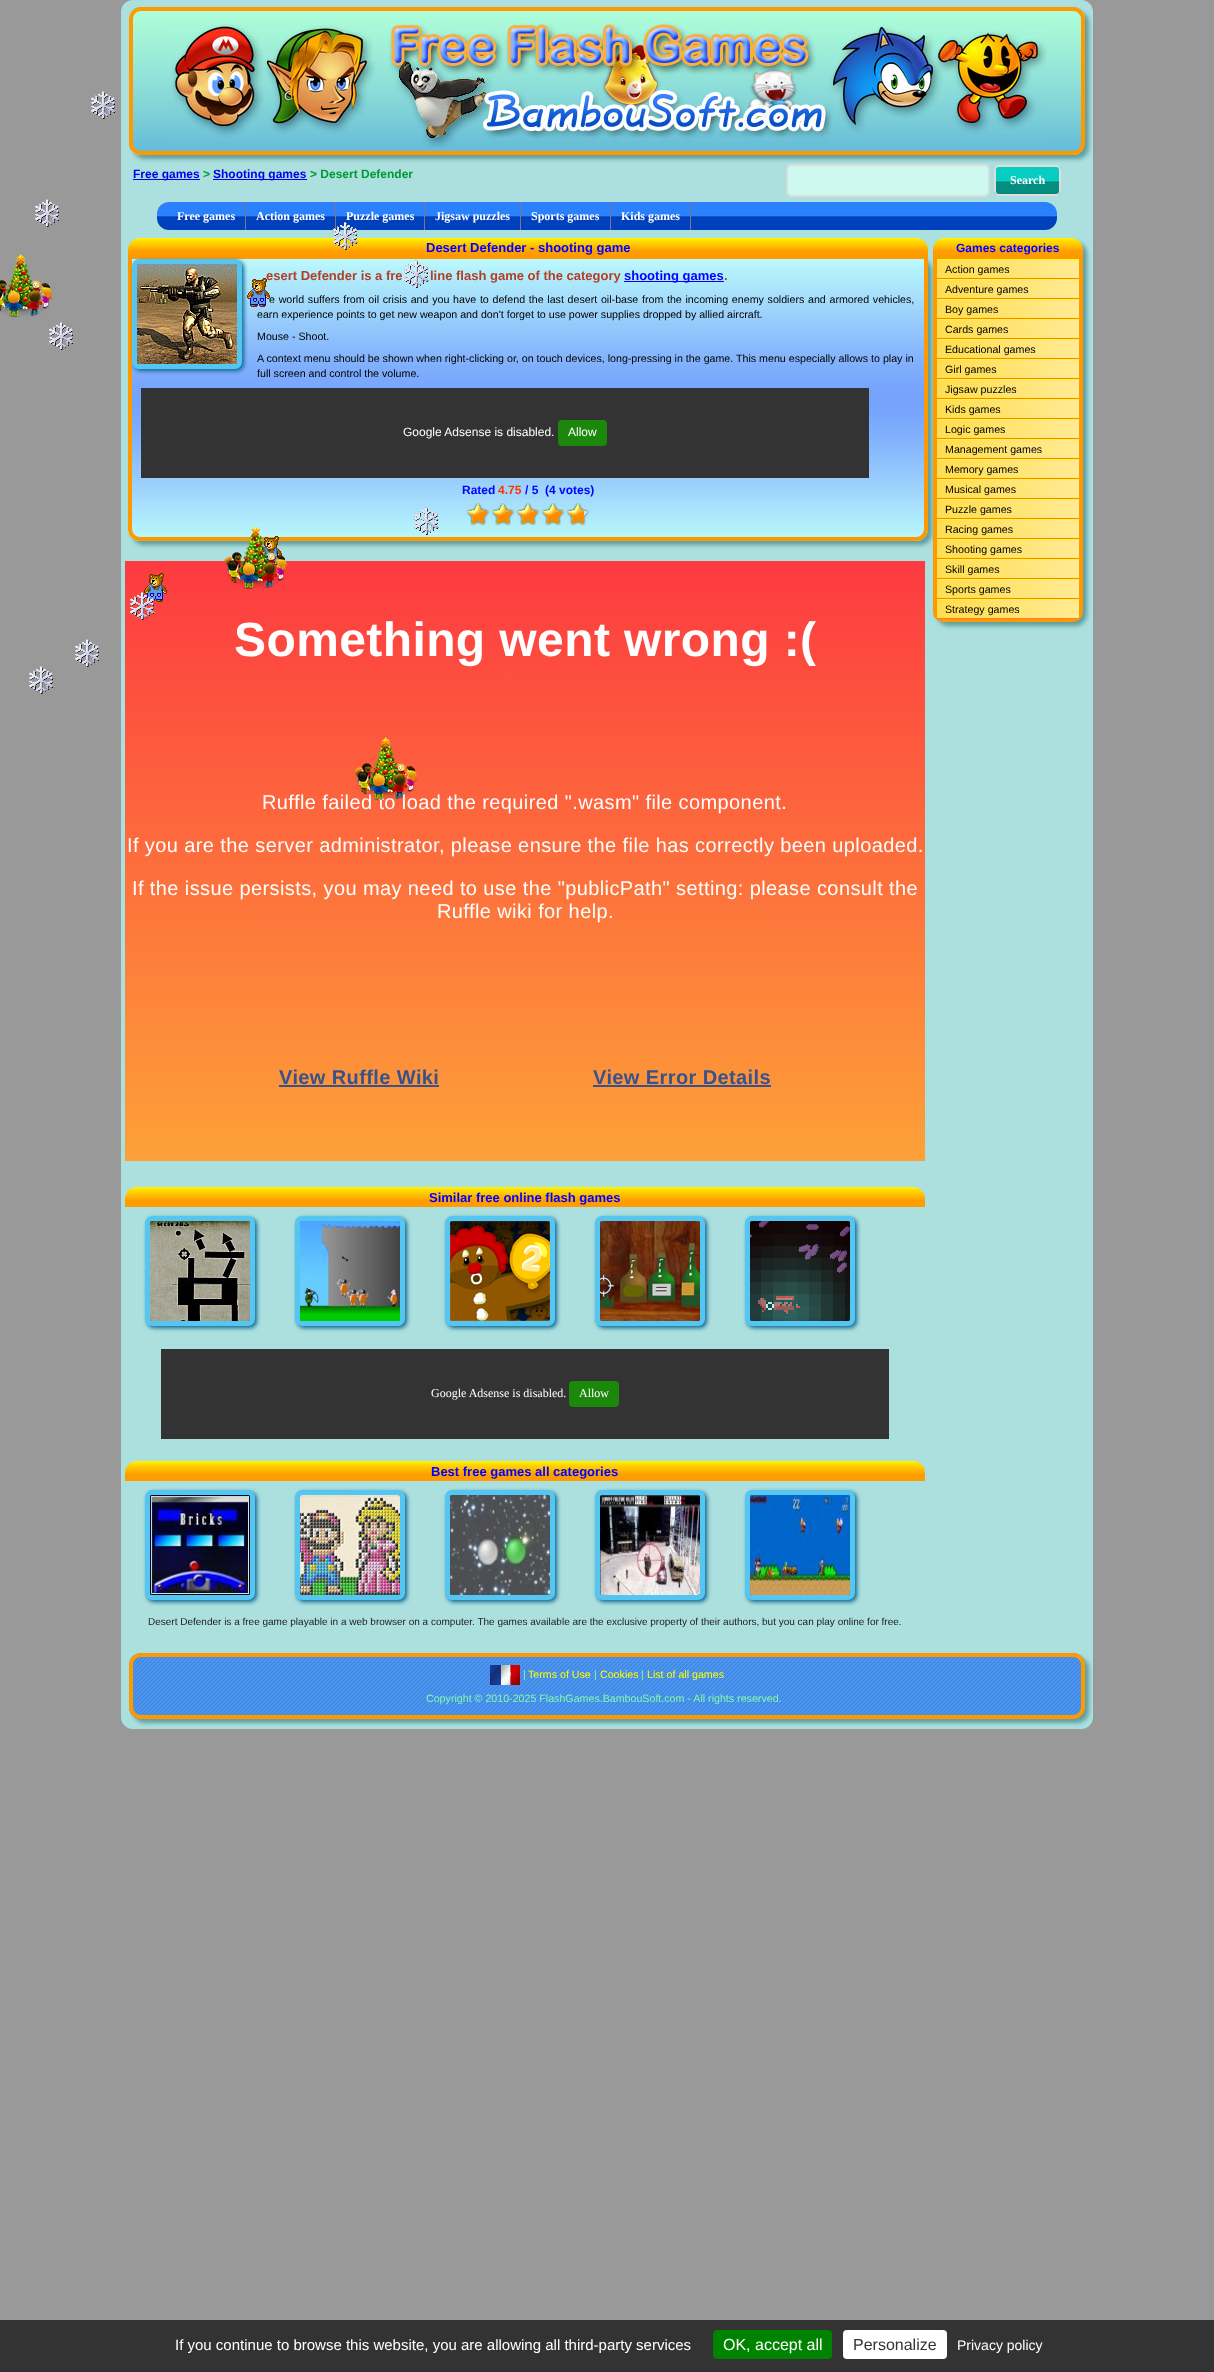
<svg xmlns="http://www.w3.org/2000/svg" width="1214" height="2372">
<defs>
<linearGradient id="g1" gradientUnits="userSpaceOnUse" x1="525" y1="561" x2="525" y2="1161"><stop offset="0" stop-color="#fd3a40"/><stop offset="1" stop-color="#fda138"/></linearGradient>
<clipPath id="clip1"><rect x="165" y="2336" width="536" height="17"/></clipPath>
</defs>
<rect width="100%" height="100%" fill="#999"/>
<image x="91" y="91" width="25" height="28" href="media/1.png"/>
<image x="35" y="199" width="25" height="28" href="media/1.png"/>
<rect x="121" width="972" height="1729" rx="12" fill="#ace0df"/>
<rect x="133" y="11" width="956" height="148" rx="12" fill="#5f9ea0" filter="blur(2px)"/>
<image x="129" y="7" width="956" height="148" href="media/2.png"/>
<rect x="131" y="9" width="952" height="144" rx="10" fill="none" stroke="#f90" stroke-width="4"/>
<image x="170" y="19" width="877" height="128" href="media/3.png"/>
<rect x="133" y="179" width="67" height="1" fill="#00e"/>
<text x="133" y="178" style="font-family:Liberation Sans;font-size:12px;font-weight:bold;fill:#00e">Free games</text>
<text x="203" y="178" style="font-family:Liberation Sans;font-size:12px;font-weight:bold;fill:#093">&gt;</text>
<rect x="213" y="179" width="94" height="1" fill="#00e"/>
<text x="213" y="178" style="font-family:Liberation Sans;font-size:12px;font-weight:bold;fill:#00e">Shooting games</text>
<text x="310" y="178" style="font-family:Liberation Sans;font-size:12px;font-weight:bold;fill:#093">&gt; Desert Defender</text>
<rect x="787" y="165" width="202" height="31" rx="5" fill="#cdf9ef" stroke="#ddd" stroke-width="2"/>
<image x="994" y="167" width="67" height="29" href="media/4.png"/>
<rect x="995" y="166" width="65" height="29" rx="4" fill="none" stroke="#ddd" stroke-width="2"/>
<text x="1010" y="184" style="font-family:Liberation Serif;font-size:12px;font-weight:bold;fill:#fff">Search</text>
<image x="157" y="202" width="900" height="28" href="media/5.png"/>
<rect x="245" y="202" width="1" height="28" fill="#778"/>
<text x="177" y="220" style="font-family:Liberation Serif;font-size:12px;font-weight:bold;fill:#fff">Free games</text>
<rect x="335" y="202" width="1" height="28" fill="#778"/>
<text x="256" y="220" style="font-family:Liberation Serif;font-size:12px;font-weight:bold;fill:#fff">Action games</text>
<rect x="424" y="202" width="1" height="28" fill="#778"/>
<text x="346" y="220" style="font-family:Liberation Serif;font-size:12px;font-weight:bold;fill:#fff">Puzzle games</text>
<rect x="520" y="202" width="1" height="28" fill="#778"/>
<text x="435" y="220" style="font-family:Liberation Serif;font-size:12px;font-weight:bold;fill:#fff">Jigsaw puzzles</text>
<rect x="610" y="202" width="1" height="28" fill="#778"/>
<text x="531" y="220" style="font-family:Liberation Serif;font-size:12px;font-weight:bold;fill:#fff">Sports games</text>
<rect x="690" y="202" width="1" height="28" fill="#778"/>
<text x="621" y="220" style="font-family:Liberation Serif;font-size:12px;font-weight:bold;fill:#fff">Kids games</text>
<image x="128" y="238" width="800" height="17" href="media/6.png"/>
<rect x="132" y="259" width="800" height="286" rx="12" fill="#5f9ea0" filter="blur(2px)"/>
<text x="426" y="252" style="font-family:Liberation Sans;font-size:13px;font-weight:bold;fill:#00f">Desert Defender - shooting game</text>
<image x="128" y="259" width="800" height="282" href="media/7.png"/>
<path d="M130 257h796v272c0 5.5-4.5 10-10 10h-776c-5.5 0-10-4.5-10-10z" fill="none" stroke="#f90" stroke-width="4"/>
<rect x="134" y="261" width="110" height="110" rx="7" fill="#0d648e" filter="blur(2px)"/>
<rect x="134.5" y="261.5" width="105" height="105" rx="4.5" fill="none" stroke="#55c6f2" stroke-width="5"/>
<image x="137" y="264" width="100" height="100" href="media/8.png"/>
<text x="266" y="280" style="font-family:Liberation Sans;font-size:13px;font-weight:bold;fill:#b33e23">esert Defender is a fre</text>
<text x="430" y="280" style="font-family:Liberation Sans;font-size:13px;font-weight:bold;fill:#b33e23">line flash game of the category</text>
<rect x="624" y="281" width="100" height="1" fill="#00f"/>
<text x="624" y="280" style="font-family:Liberation Sans;font-size:13px;font-weight:bold;fill:#00f">shooting games</text>
<text x="724" y="280" style="font-family:Liberation Sans;font-size:13px;font-weight:bold;fill:#b33e23">.</text>
<text x="269" y="303" word-spacing="0.75" style="font-family:Liberation Sans;font-size:10.67px;fill:#000">e world suffers from oil crisis and you have to defend the last desert oil-base from the incoming enemy soldiers and armored vehicles,</text>
<text x="257" y="318" style="font-family:Liberation Sans;font-size:10.67px;fill:#000">earn experience points to get new weapon and don't forget to use power supplies dropped by allied aircraft.</text>
<text x="257" y="340" style="font-family:Liberation Sans;font-size:10.67px;fill:#000">Mouse - Shoot.</text>
<text x="257" y="362" style="font-family:Liberation Sans;font-size:10.67px;fill:#000">A context menu should be shown when right-clicking or, on touch devices, long-pressing in the game. This menu especially allows to play in</text>
<text x="257" y="377" style="font-family:Liberation Sans;font-size:10.67px;fill:#000">full screen and control the volume.</text>
<rect x="141" y="388" width="728" height="90" fill="#333"/>
<text x="403" y="436" style="font-family:Liberation Sans;font-size:12px;fill:#fff">Google Adsense is disabled.</text>
<rect x="558" y="420" width="49" height="26" rx="4" fill="#1b870b"/>
<text x="568" y="436" style="font-family:Liberation Sans;font-size:12px;fill:#fff">Allow</text>
<text x="462" y="494" style="font-family:Liberation Sans;font-size:12px;font-weight:bold;fill:#00f">Rated</text>
<text x="498" y="494" style="font-family:Liberation Sans;font-size:12px;font-weight:bold;fill:#f30">4.75</text>
<text x="525" y="494" style="font-family:Liberation Sans;font-size:12px;font-weight:bold;fill:#00f" xml:space="preserve">/ 5  (4 votes)</text>
<image x="467" y="503" width="122" height="23" href="media/9.png"/>
<image x="466" y="503" width="118" height="23" href="media/10.png"/>
<rect x="125" y="561" width="800" height="600" fill="url(#g1)"/>
<text x="234" y="656" style="font-family:Liberation Sans;font-size:48px;font-weight:bold;letter-spacing:0.4px;fill:#fff">Something went wrong :(</text>
<text x="262" y="809" style="font-family:Liberation Sans;font-size:20px;letter-spacing:0.4px;fill:#fff">Ruffle failed to load the required ".wasm" file component.</text>
<text x="127" y="852" style="font-family:Liberation Sans;font-size:20px;letter-spacing:0.4px;fill:#fff">If you are the server administrator, please ensure the file has correctly been uploaded.</text>
<text x="132" y="895" style="font-family:Liberation Sans;font-size:20px;letter-spacing:0.4px;fill:#fff">If the issue persists, you may need to use the "publicPath" setting: please consult the</text>
<text x="437" y="918" style="font-family:Liberation Sans;font-size:20px;letter-spacing:0.4px;fill:#fff">Ruffle wiki for help.</text>
<text x="279" y="1084" style="font-family:Liberation Sans;font-size:20px;font-weight:bold;letter-spacing:0.4px;fill:#37528c">View Ruffle Wiki</text>
<rect x="279" y="1085" width="160" height="2" fill="#37528c"/>
<text x="593" y="1084" style="font-family:Liberation Sans;font-size:20px;font-weight:bold;letter-spacing:0.4px;fill:#37528c">View Error Details</text>
<rect x="593" y="1085" width="178" height="2" fill="#37528c"/>
<image x="125" y="1187" width="800" height="20" href="media/11.png"/>
<text x="429" y="1202" style="font-family:Liberation Sans;font-size:13px;font-weight:bold;fill:#00f">Similar free online flash games</text>
<rect x="147" y="1218" width="110" height="110" rx="7" fill="#0d648e" filter="blur(2px)"/>
<rect x="147.5" y="1218.5" width="105" height="105" rx="4.5" fill="none" stroke="#55c6f2" stroke-width="5"/>
<image x="150" y="1221" width="100" height="100" href="media/12.png"/>
<rect x="297" y="1218" width="110" height="110" rx="7" fill="#0d648e" filter="blur(2px)"/>
<rect x="297.5" y="1218.5" width="105" height="105" rx="4.5" fill="none" stroke="#55c6f2" stroke-width="5"/>
<image x="300" y="1221" width="100" height="100" href="media/13.png"/>
<rect x="447" y="1218" width="110" height="110" rx="7" fill="#0d648e" filter="blur(2px)"/>
<rect x="447.5" y="1218.5" width="105" height="105" rx="4.5" fill="none" stroke="#55c6f2" stroke-width="5"/>
<image x="450" y="1221" width="100" height="100" href="media/14.png"/>
<rect x="597" y="1218" width="110" height="110" rx="7" fill="#0d648e" filter="blur(2px)"/>
<rect x="597.5" y="1218.5" width="105" height="105" rx="4.5" fill="none" stroke="#55c6f2" stroke-width="5"/>
<image x="600" y="1221" width="100" height="100" href="media/15.png"/>
<rect x="747" y="1218" width="110" height="110" rx="7" fill="#0d648e" filter="blur(2px)"/>
<rect x="747.5" y="1218.5" width="105" height="105" rx="4.5" fill="none" stroke="#55c6f2" stroke-width="5"/>
<image x="750" y="1221" width="100" height="100" href="media/16.png"/>
<rect x="161" y="1349" width="728" height="90" fill="#333"/>
<text x="431" y="1397" style="font-family:Liberation Serif;font-size:12px;fill:#fff">Google Adsense is disabled.</text>
<rect x="569" y="1381" width="50" height="26" rx="4" fill="#1b870b"/>
<text x="579" y="1397" style="font-family:Liberation Serif;font-size:12px;fill:#fff">Allow</text>
<image x="125" y="1461" width="800" height="20" href="media/11.png"/>
<text x="431" y="1476" style="font-family:Liberation Sans;font-size:13px;font-weight:bold;fill:#00f">Best free games all categories</text>
<rect x="147" y="1492" width="110" height="110" rx="7" fill="#0d648e" filter="blur(2px)"/>
<rect x="147.5" y="1492.5" width="105" height="105" rx="4.5" fill="none" stroke="#55c6f2" stroke-width="5"/>
<image x="150" y="1495" width="100" height="100" href="media/17.png"/>
<rect x="297" y="1492" width="110" height="110" rx="7" fill="#0d648e" filter="blur(2px)"/>
<rect x="297.5" y="1492.5" width="105" height="105" rx="4.5" fill="none" stroke="#55c6f2" stroke-width="5"/>
<image x="300" y="1495" width="100" height="100" href="media/18.png"/>
<rect x="447" y="1492" width="110" height="110" rx="7" fill="#0d648e" filter="blur(2px)"/>
<rect x="447.5" y="1492.5" width="105" height="105" rx="4.5" fill="none" stroke="#55c6f2" stroke-width="5"/>
<image x="450" y="1495" width="100" height="100" href="media/19.png"/>
<rect x="597" y="1492" width="110" height="110" rx="7" fill="#0d648e" filter="blur(2px)"/>
<rect x="597.5" y="1492.5" width="105" height="105" rx="4.5" fill="none" stroke="#55c6f2" stroke-width="5"/>
<image x="600" y="1495" width="100" height="100" href="media/20.png"/>
<rect x="747" y="1492" width="110" height="110" rx="7" fill="#0d648e" filter="blur(2px)"/>
<rect x="747.5" y="1492.5" width="105" height="105" rx="4.5" fill="none" stroke="#55c6f2" stroke-width="5"/>
<image x="750" y="1495" width="100" height="100" href="media/21.png"/>
<text x="148" y="1625" style="font-family:Liberation Sans;font-size:10px;fill:#222">Desert Defender is a free game playable in a web browser on a computer. The games available are the exclusive property of their authors, but you can play online for free.</text>
<rect x="937" y="242" width="150" height="384" rx="12" fill="#5f9ea0" filter="blur(2px)"/>
<image x="933" y="238" width="150" height="17" href="media/22.png"/>
<text x="956" y="252" style="font-family:Liberation Sans;font-size:12px;font-weight:bold;fill:#00f">Games categories</text>
<path d="M935 257h146v355c0 4.5-3.5 8-8 8h-130c-4.5 0-8-3.5-8-8z" fill="none" stroke="#f90" stroke-width="4"/>
<image x="937" y="260" width="142" height="18" href="media/23.png"/>
<rect x="937" y="259" width="142" height="1" fill="#ff0"/>
<rect x="937" y="278" width="142" height="1" fill="#fe7d2a"/>
<text x="945" y="273" style="font-family:Liberation Sans;font-size:10.67px;fill:#000">Action games</text>
<image x="937" y="280" width="142" height="18" href="media/23.png"/>
<rect x="937" y="279" width="142" height="1" fill="#ff0"/>
<rect x="937" y="298" width="142" height="1" fill="#fe7d2a"/>
<text x="945" y="293" style="font-family:Liberation Sans;font-size:10.67px;fill:#000">Adventure games</text>
<image x="937" y="300" width="142" height="18" href="media/23.png"/>
<rect x="937" y="299" width="142" height="1" fill="#ff0"/>
<rect x="937" y="318" width="142" height="1" fill="#fe7d2a"/>
<text x="945" y="313" style="font-family:Liberation Sans;font-size:10.67px;fill:#000">Boy games</text>
<image x="937" y="320" width="142" height="18" href="media/23.png"/>
<rect x="937" y="319" width="142" height="1" fill="#ff0"/>
<rect x="937" y="338" width="142" height="1" fill="#fe7d2a"/>
<text x="945" y="333" style="font-family:Liberation Sans;font-size:10.67px;fill:#000">Cards games</text>
<image x="937" y="340" width="142" height="18" href="media/23.png"/>
<rect x="937" y="339" width="142" height="1" fill="#ff0"/>
<rect x="937" y="358" width="142" height="1" fill="#fe7d2a"/>
<text x="945" y="353" style="font-family:Liberation Sans;font-size:10.67px;fill:#000">Educational games</text>
<image x="937" y="360" width="142" height="18" href="media/23.png"/>
<rect x="937" y="359" width="142" height="1" fill="#ff0"/>
<rect x="937" y="378" width="142" height="1" fill="#fe7d2a"/>
<text x="945" y="373" style="font-family:Liberation Sans;font-size:10.67px;fill:#000">Girl games</text>
<image x="937" y="380" width="142" height="18" href="media/23.png"/>
<rect x="937" y="379" width="142" height="1" fill="#ff0"/>
<rect x="937" y="398" width="142" height="1" fill="#fe7d2a"/>
<text x="945" y="393" style="font-family:Liberation Sans;font-size:10.67px;fill:#000">Jigsaw puzzles</text>
<image x="937" y="400" width="142" height="18" href="media/23.png"/>
<rect x="937" y="399" width="142" height="1" fill="#ff0"/>
<rect x="937" y="418" width="142" height="1" fill="#fe7d2a"/>
<text x="945" y="413" style="font-family:Liberation Sans;font-size:10.67px;fill:#000">Kids games</text>
<image x="937" y="420" width="142" height="18" href="media/23.png"/>
<rect x="937" y="419" width="142" height="1" fill="#ff0"/>
<rect x="937" y="438" width="142" height="1" fill="#fe7d2a"/>
<text x="945" y="433" style="font-family:Liberation Sans;font-size:10.67px;fill:#000">Logic games</text>
<image x="937" y="440" width="142" height="18" href="media/23.png"/>
<rect x="937" y="439" width="142" height="1" fill="#ff0"/>
<rect x="937" y="458" width="142" height="1" fill="#fe7d2a"/>
<text x="945" y="453" style="font-family:Liberation Sans;font-size:10.67px;fill:#000">Management games</text>
<image x="937" y="460" width="142" height="18" href="media/23.png"/>
<rect x="937" y="459" width="142" height="1" fill="#ff0"/>
<rect x="937" y="478" width="142" height="1" fill="#fe7d2a"/>
<text x="945" y="473" style="font-family:Liberation Sans;font-size:10.67px;fill:#000">Memory games</text>
<image x="937" y="480" width="142" height="18" href="media/23.png"/>
<rect x="937" y="479" width="142" height="1" fill="#ff0"/>
<rect x="937" y="498" width="142" height="1" fill="#fe7d2a"/>
<text x="945" y="493" style="font-family:Liberation Sans;font-size:10.67px;fill:#000">Musical games</text>
<image x="937" y="500" width="142" height="18" href="media/23.png"/>
<rect x="937" y="499" width="142" height="1" fill="#ff0"/>
<rect x="937" y="518" width="142" height="1" fill="#fe7d2a"/>
<text x="945" y="513" style="font-family:Liberation Sans;font-size:10.67px;fill:#000">Puzzle games</text>
<image x="937" y="520" width="142" height="18" href="media/23.png"/>
<rect x="937" y="519" width="142" height="1" fill="#ff0"/>
<rect x="937" y="538" width="142" height="1" fill="#fe7d2a"/>
<text x="945" y="533" style="font-family:Liberation Sans;font-size:10.67px;fill:#000">Racing games</text>
<image x="937" y="540" width="142" height="18" href="media/23.png"/>
<rect x="937" y="539" width="142" height="1" fill="#ff0"/>
<rect x="937" y="558" width="142" height="1" fill="#fe7d2a"/>
<text x="945" y="553" style="font-family:Liberation Sans;font-size:10.67px;fill:#000">Shooting games</text>
<image x="937" y="560" width="142" height="18" href="media/23.png"/>
<rect x="937" y="559" width="142" height="1" fill="#ff0"/>
<rect x="937" y="578" width="142" height="1" fill="#fe7d2a"/>
<text x="945" y="573" style="font-family:Liberation Sans;font-size:10.67px;fill:#000">Skill games</text>
<image x="937" y="580" width="142" height="18" href="media/23.png"/>
<rect x="937" y="579" width="142" height="1" fill="#ff0"/>
<rect x="937" y="598" width="142" height="1" fill="#fe7d2a"/>
<text x="945" y="593" style="font-family:Liberation Sans;font-size:10.67px;fill:#000">Sports games</text>
<image x="937" y="600" width="142" height="18" href="media/23.png"/>
<rect x="937" y="599" width="142" height="1" fill="#ff0"/>
<rect x="937" y="618" width="142" height="1" fill="#fe7d2a"/>
<text x="945" y="613" style="font-family:Liberation Sans;font-size:10.67px;fill:#000">Strategy games</text>
<rect x="133" y="1657" width="956" height="66" rx="12" fill="#5f9ea0" filter="blur(2px)"/>
<image x="129" y="1653" width="956" height="66" href="media/24.png"/>
<rect x="131" y="1655" width="952" height="62" rx="10" fill="none" stroke="#f90" stroke-width="4"/>
<image x="490" y="1665" width="30" height="20" href="media/25.png"/>
<text x="523" y="1678" style="font-family:Liberation Sans;font-size:10.67px;fill:#83f9ab">|</text>
<text x="528" y="1678" style="font-family:Liberation Sans;font-size:10.67px;fill:#ff0">Terms of Use</text>
<text x="594" y="1678" style="font-family:Liberation Sans;font-size:10.67px;fill:#83f9ab">|</text>
<text x="600" y="1678" style="font-family:Liberation Sans;font-size:10.67px;fill:#ff0">Cookies</text>
<text x="641" y="1678" style="font-family:Liberation Sans;font-size:10.67px;fill:#83f9ab">|</text>
<text x="647" y="1678" style="font-family:Liberation Sans;font-size:10.67px;fill:#ff0">List of all games</text>
<text x="426" y="1702" style="font-family:Liberation Sans;font-size:10.67px;fill:#83f9ab">Copyright © 2010-2025 FlashGames.BambouSoft.com - All rights reserved.</text>
<image x="333" y="222" width="25" height="28" href="media/26.png"/>
<image x="0" y="254" width="53" height="64" href="media/27.png"/>
<image x="404" y="260" width="25" height="28" href="media/28.png"/>
<image x="247" y="278" width="23" height="29" href="media/29.png"/>
<image x="49" y="322" width="25" height="28" href="media/1.png"/>
<image x="414" y="507" width="25" height="28" href="media/30.png"/>
<image x="261" y="536" width="21" height="29" href="media/32.png"/>
<image x="224" y="526" width="64" height="64" href="media/31.png"/>
<image x="144" y="573" width="23" height="29" href="media/33.png"/>
<image x="130" y="592" width="25" height="28" href="media/34.png"/>
<image x="75" y="639" width="25" height="28" href="media/1.png"/>
<image x="29" y="666" width="25" height="28" href="media/1.png"/>
<image x="354" y="737" width="64" height="64" href="media/35.png"/>
<rect y="2320" width="1214" height="52" fill="#333"/>
<g clip-path="url(#clip1)">
<text x="175" y="2350" style="font-family:Liberation Sans;font-size:15px;fill:#fff">If you continue to browse this website, you are allowing all third-party services</text>
</g>
<rect x="713" y="2330" width="119" height="29" rx="4" fill="#008300"/>
<text x="723" y="2350" style="font-family:Liberation Sans;font-size:16px;fill:#fff">OK, accept all</text>
<rect x="843" y="2330" width="104" height="29" rx="4" fill="#fff"/>
<text x="853" y="2350" style="font-family:Liberation Sans;font-size:16px;fill:#333">Personalize</text>
<text x="957" y="2350" style="font-family:Liberation Sans;font-size:14px;fill:#fff">Privacy policy</text>
</svg>
